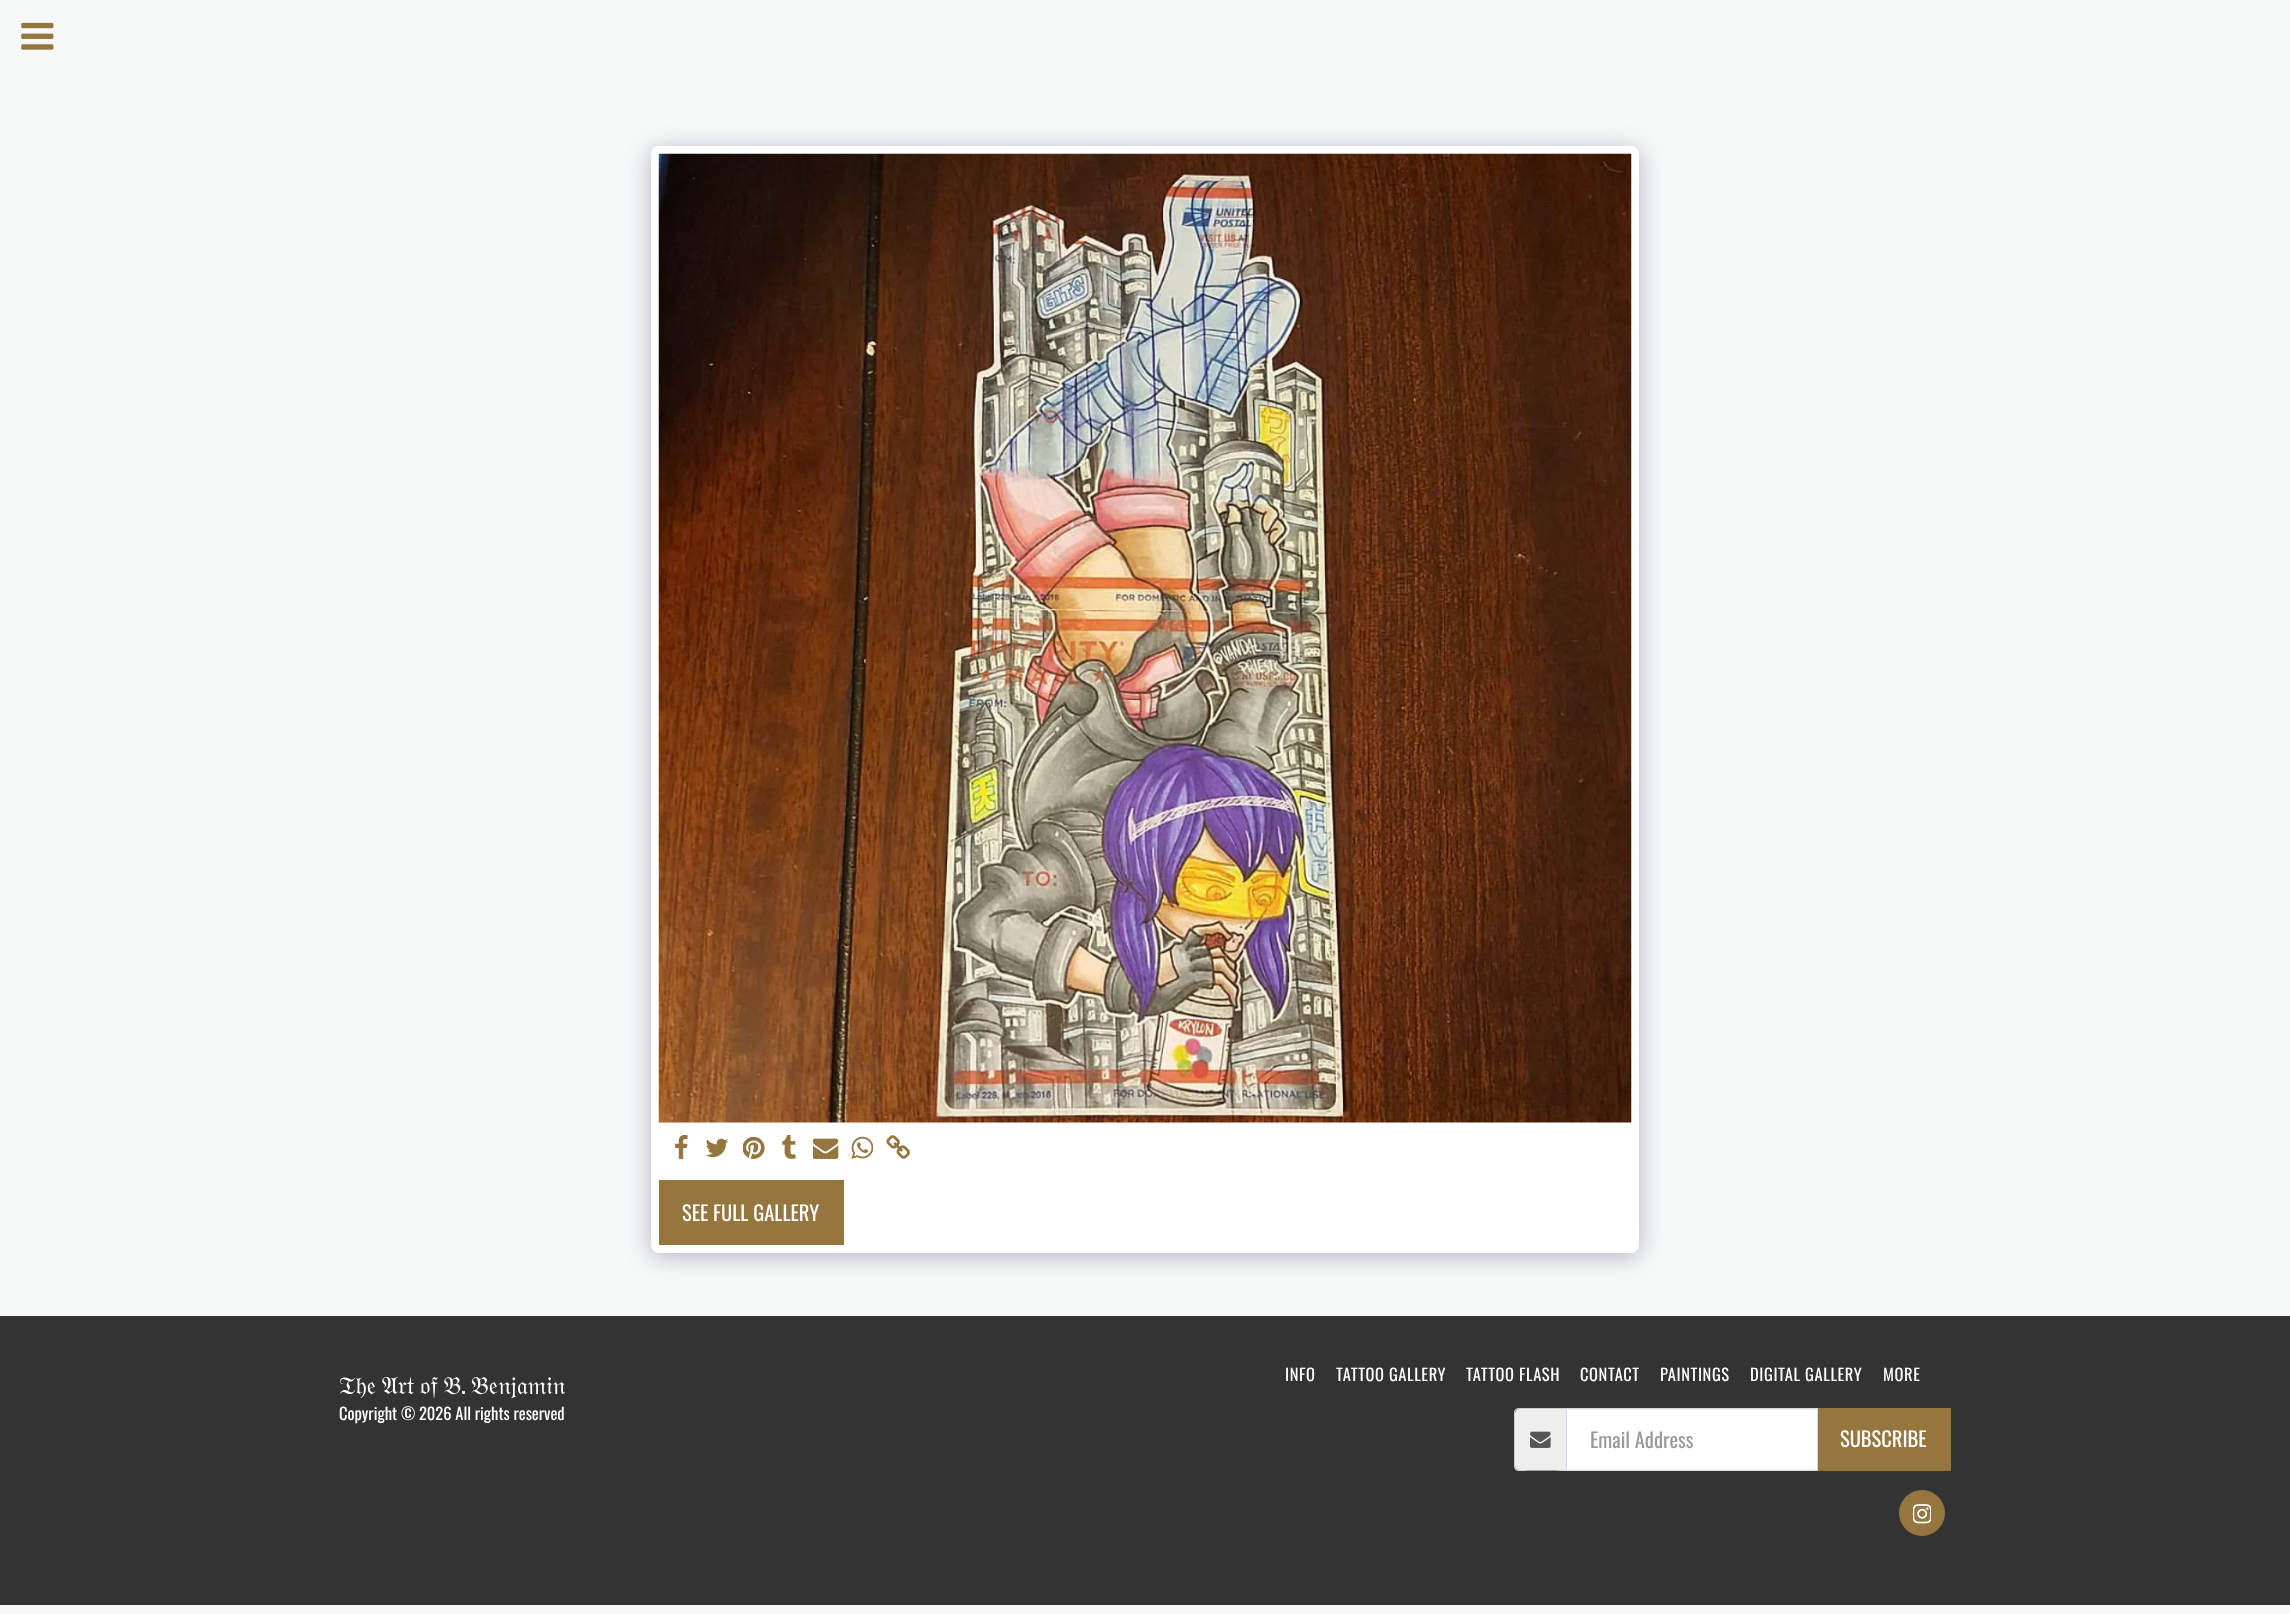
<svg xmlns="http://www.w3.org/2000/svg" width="2290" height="1614">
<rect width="100%" height="100%" fill="#f7f9f8"/>
<image x="21" y="22" width="33" height="28" href="media/1.png"/>
<rect x="651" y="150" width="988" height="1106" rx="8" fill="#4d3f7a66" filter="blur(12.5px)"/>
<rect x="651" y="146" width="988" height="1107" rx="8" fill="#fff"/>
<image x="658" y="153" width="974" height="970" href="media/2.png"/>
<image x="675" y="1135" width="13" height="24" href="media/3.png"/>
<image x="705" y="1138" width="24" height="20" href="media/4.png"/>
<image x="743" y="1136" width="22" height="23" href="media/5.png"/>
<image x="782" y="1135" width="14" height="24" href="media/6.png"/>
<image x="813" y="1138" width="26" height="21" href="media/7.png"/>
<image x="851" y="1136" width="22" height="23" href="media/8.png"/>
<image x="886" y="1135" width="24" height="24" href="media/9.png"/>
<rect x="659" y="1180" width="185" height="65" fill="#94763e"/>
<text x="682" y="1221" style="font-family:Oswald;font-size:20.5px;fill:#fff">SEE FULL GALLERY</text>
<rect y="1316" width="2290" height="289" fill="#333"/>
<rect y="1315" width="2290" height="1" fill="#f2f0fc"/>
<text x="339" y="1394" word-spacing="-0.5" style="font-family:FreeSerif;font-size:24.75px;fill:#fff">𝔗𝔥𝔢 𝔄𝔯𝔱 𝔬𝔣 𝔅</text>
<text x="461" y="1394" style="font-family:Oswald;font-size:24.75px;fill:#fff">.</text>
<text x="471" y="1394" style="font-family:FreeSerif;font-size:24.75px;fill:#fff">𝔅𝔢𝔫𝔧𝔞𝔪𝔦𝔫</text>
<text x="339" y="1420" style="font-family:Oswald;font-size:16.5px;fill:#fff">Copyright © 2026 All rights reserved</text>
<text x="1285" y="1381" style="font-family:Oswald;font-size:16.5px;letter-spacing:0.6px;fill:#fff">INFO</text>
<text x="1336" y="1381" style="font-family:Oswald;font-size:16.5px;letter-spacing:0.6px;fill:#fff">TATTOO GALLERY</text>
<text x="1466" y="1381" style="font-family:Oswald;font-size:16.5px;letter-spacing:0.6px;fill:#fff">TATTOO FLASH</text>
<text x="1580" y="1381" style="font-family:Oswald;font-size:16.5px;letter-spacing:0.6px;fill:#fff">CONTACT</text>
<text x="1660" y="1381" style="font-family:Oswald;font-size:16.5px;letter-spacing:0.6px;fill:#fff">PAINTINGS</text>
<text x="1750" y="1381" style="font-family:Oswald;font-size:16.5px;letter-spacing:0.6px;fill:#fff">DIGITAL GALLERY</text>
<text x="1883" y="1381" style="font-family:Oswald;font-size:16.5px;letter-spacing:0.6px;fill:#fff">MORE</text>
<path d="M1519 1409h47v61h-47c-2 0-4-2-4-4v-53c0-2 2-4 4-4z" fill="#eee"/>
<path d="M1519 1408h47v63h-47c-3 0-5-2-5-5v-54c0-2 2-4 5-4zm0 1h47v61c-6 0-47 1-49-1l-2-2v-55l1-2z" fill="#ccc" fill-rule="evenodd"/>
<image x="1530" y="1431" width="21" height="17" href="media/10.png"/>
<rect x="1567" y="1409" width="250" height="61" fill="#fff"/>
<rect x="1568" y="1409" width="248" height="1" fill="#ececec"/>
<rect x="1566.5" y="1408.5" width="251" height="62" fill="none" stroke="#d4d7e5"/>
<text x="1590" y="1448" style="font-family:Oswald;font-size:20.5px;fill:#999">Email Address</text>
<rect x="1818" y="1408" width="133" height="63" fill="#94763e"/>
<text x="1840" y="1447" style="font-family:Oswald;font-size:20.5px;fill:#fff">SUBSCRIBE</text>
<circle cx="1922" cy="1513" r="22.5" fill="#94763e" stroke="#94763e"/>
<image x="1913" y="1504" width="18" height="20" href="media/11.png"/>
</svg>
